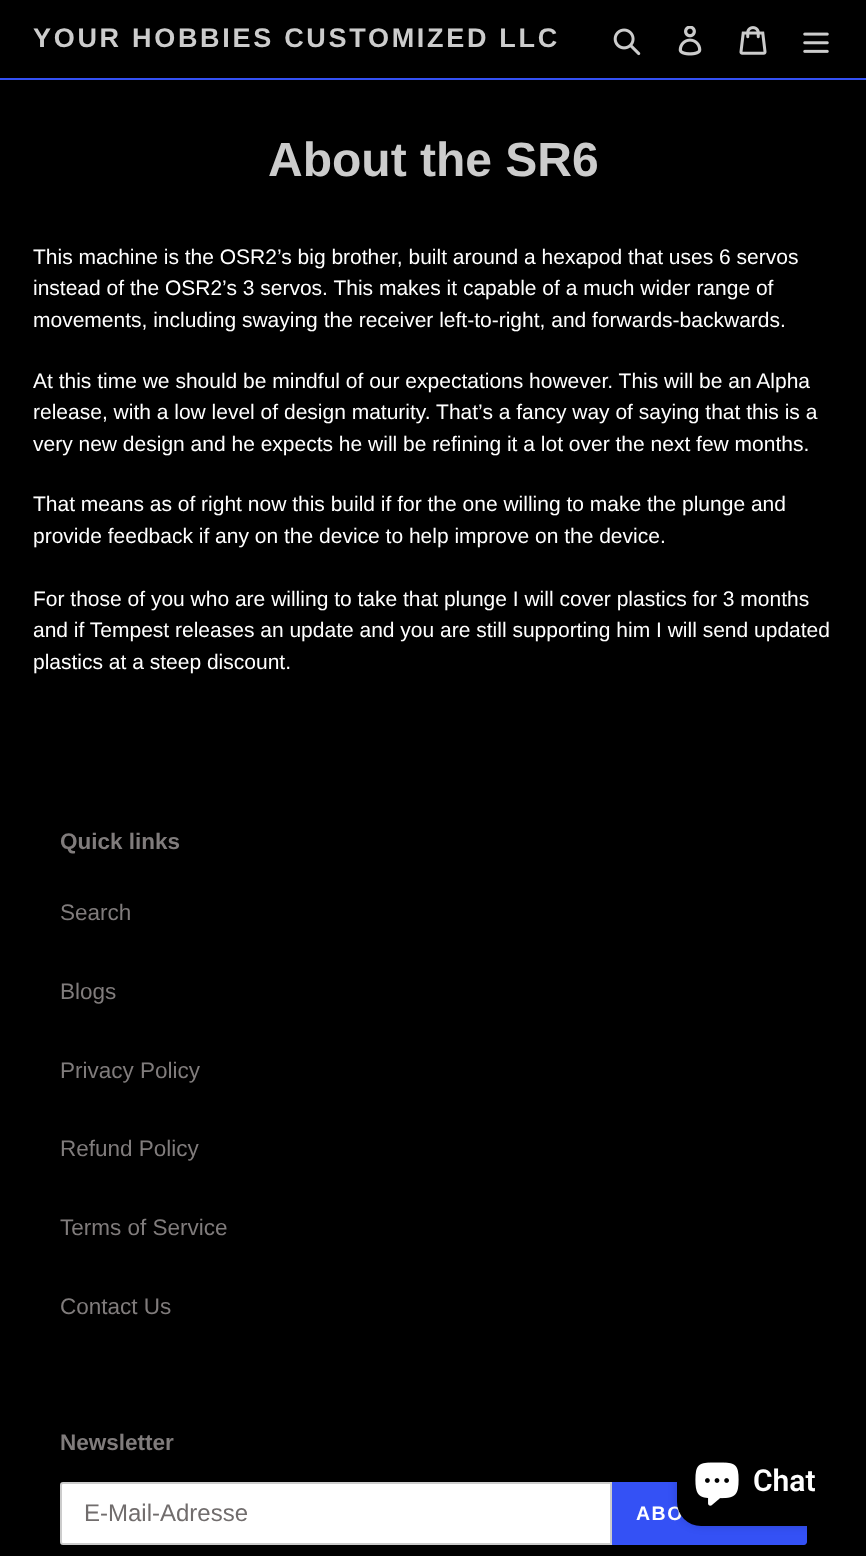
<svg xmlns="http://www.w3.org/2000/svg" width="866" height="1556">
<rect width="100%" height="100%" fill="#000"/>
<rect y="78" width="866" height="2" fill="#3451f5"/>
<text x="33" y="47" style="font-family:Liberation Sans;font-size:27px;font-weight:bold;letter-spacing:2.7px;fill:#ccc">YOUR HOBBIES CUSTOMIZED LLC</text>
<image x="613" y="28" width="28" height="28" href="media/1.png"/>
<image x="678" y="26" width="24" height="30" href="media/2.png"/>
<image x="739" y="26" width="28" height="29" href="media/3.png"/>
<image x="803" y="32" width="26" height="21" href="media/4.png"/>
<text x="268" y="176" style="font-family:Liberation Sans;font-size:48px;font-weight:bold;fill:#ccc">About the SR6</text>
<text x="33" y="264" style="font-family:Liberation Sans;font-size:21px;fill:#fff">This machine is the OSR2’s big brother, built around a hexapod that uses 6 servos</text>
<text x="33" y="295" style="font-family:Liberation Sans;font-size:21px;fill:#fff">instead of the OSR2’s 3 servos. This makes it capable of a much wider range of</text>
<text x="33" y="327" style="font-family:Liberation Sans;font-size:21px;fill:#fff">movements, including swaying the receiver left-to-right, and forwards-backwards.</text>
<text x="33" y="388" style="font-family:Liberation Sans;font-size:21px;fill:#fff">At this time we should be mindful of our expectations however. This will be an Alpha</text>
<text x="33" y="419" style="font-family:Liberation Sans;font-size:21px;fill:#fff">release, with a low level of design maturity. That’s a fancy way of saying that this is a</text>
<text x="33" y="451" style="font-family:Liberation Sans;font-size:21px;fill:#fff">very new design and he expects he will be refining it a lot over the next few months.</text>
<text x="33" y="511" style="font-family:Liberation Sans;font-size:21px;fill:#fff">That means as of right now this build if for the one willing to make the plunge and</text>
<text x="33" y="543" style="font-family:Liberation Sans;font-size:21px;fill:#fff">provide feedback if any on the device to help improve on the device.</text>
<text x="33" y="606" style="font-family:Liberation Sans;font-size:21px;fill:#fff">For those of you who are willing to take that plunge I will cover plastics for 3 months</text>
<text x="33" y="637" style="font-family:Liberation Sans;font-size:21px;fill:#fff">and if Tempest releases an update and you are still supporting him I will send updated</text>
<text x="33" y="669" style="font-family:Liberation Sans;font-size:21px;fill:#fff">plastics at a steep discount.</text>
<text x="60" y="849" style="font-family:Liberation Sans;font-size:22.5px;font-weight:bold;fill:#807c7c">Quick links</text>
<text x="60" y="920" style="font-family:Liberation Sans;font-size:22.5px;fill:#807c7c">Search</text>
<text x="60" y="999" style="font-family:Liberation Sans;font-size:22.5px;fill:#807c7c">Blogs</text>
<text x="60" y="1078" style="font-family:Liberation Sans;font-size:22.5px;fill:#807c7c">Privacy Policy</text>
<text x="60" y="1156" style="font-family:Liberation Sans;font-size:22.5px;fill:#807c7c">Refund Policy</text>
<text x="60" y="1235" style="font-family:Liberation Sans;font-size:22.5px;fill:#807c7c">Terms of Service</text>
<text x="60" y="1314" style="font-family:Liberation Sans;font-size:22.5px;fill:#807c7c">Contact Us</text>
<text x="60" y="1450" style="font-family:Liberation Sans;font-size:22.5px;font-weight:bold;fill:#807c7c">Newsletter</text>
<path d="M63 1483h548v61h-548c-1 0-2-1-2-2v-57c0-1 1-2 2-2z" fill="#fff" stroke="#ccc" stroke-width="2"/>
<text x="84" y="1521" style="font-family:Liberation Sans;font-size:24px;fill:#716d6d">E-Mail-Adresse</text>
<path d="M612 1482h192c1.5 0 3 1.5 3 3v57c0 1.5-1.5 3-3 3h-192z" fill="#3451f5"/>
<text x="636" y="1520" style="font-family:Liberation Sans;font-size:19.5px;font-weight:bold;letter-spacing:1.5px;fill:#fff">ABO</text>
<rect x="677" y="1436" width="157" height="90" rx="24" fill="#00000026" filter="blur(4px)"/>
<rect x="677" y="1436" width="157" height="90" rx="24" fill="#000"/>
<image x="695" y="1462" width="44" height="44" href="media/5.png"/>
<text x="753" y="1491" style="font-family:Roboto;font-size:30px;font-weight:600;fill:#fff">Chat</text>
</svg>
